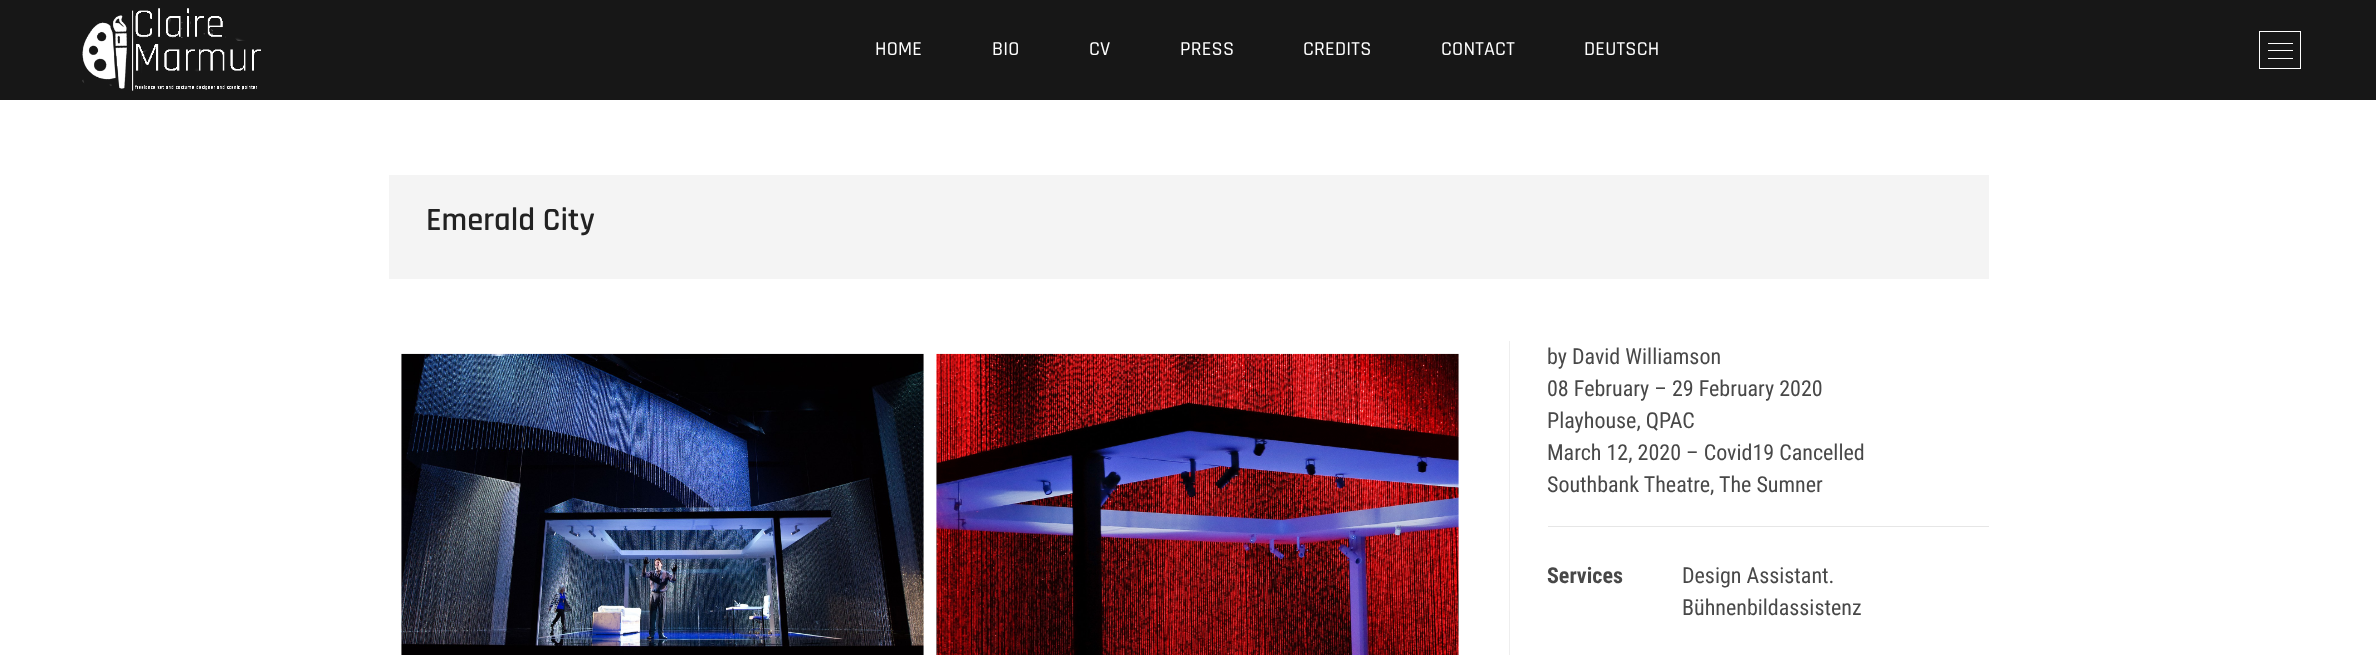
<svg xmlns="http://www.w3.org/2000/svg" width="2376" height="655">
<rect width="100%" height="100%" fill="#fff"/>
<rect width="2376" height="100" fill="#171717"/>
<image x="82" y="8" width="179" height="83" href="media/1.png"/>
<text x="875" y="55" style="font-family:Rajdhani;font-size:20px;font-weight:500;letter-spacing:0.25px;fill:#fff">HOME</text>
<text x="992" y="55" style="font-family:Rajdhani;font-size:20px;font-weight:500;letter-spacing:0.25px;fill:#fff">BIO</text>
<text x="1089" y="55" style="font-family:Rajdhani;font-size:20px;font-weight:500;letter-spacing:0.25px;fill:#fff">CV</text>
<text x="1180" y="55" style="font-family:Rajdhani;font-size:20px;font-weight:500;letter-spacing:0.25px;fill:#fff">PRESS</text>
<text x="1303" y="55" style="font-family:Rajdhani;font-size:20px;font-weight:500;letter-spacing:0.25px;fill:#fff">CREDITS</text>
<text x="1441" y="55" style="font-family:Rajdhani;font-size:20px;font-weight:500;letter-spacing:0.25px;fill:#fff">CONTACT</text>
<text x="1584" y="55" style="font-family:Rajdhani;font-size:20px;font-weight:500;letter-spacing:0.25px;fill:#fff">DEUTSCH</text>
<rect x="2259.5" y="31.5" width="41" height="37" fill="none" stroke="#fff"/>
<rect x="2268" y="50" width="25" height="1" fill="#fff"/>
<rect x="2268" y="43" width="25" height="1" fill="#fff"/>
<rect x="2268" y="58" width="25" height="1" fill="#fff"/>
<rect x="389" y="175" width="1600" height="104" fill="#f4f4f4"/>
<text x="426" y="230" style="font-family:Rajdhani;font-size:32.5px;font-weight:600;fill:#222">Emerald City</text>
<image x="401" y="353" width="523" height="302" href="media/2.png"/>
<image x="936" y="353" width="523" height="302" href="media/3.png"/>
<rect x="1509" y="341" width="1" height="314" fill="#eee"/>
<text x="1547" y="364" style="font-family:Roboto Condensed;font-size:22px;fill:#484848">by David Williamson</text>
<text x="1547" y="396" style="font-family:Roboto Condensed;font-size:22px;fill:#484848">08 February – 29 February 2020</text>
<text x="1547" y="428" style="font-family:Roboto Condensed;font-size:22px;fill:#484848">Playhouse, QPAC</text>
<text x="1547" y="460" style="font-family:Roboto Condensed;font-size:22px;fill:#484848">March 12, 2020 – Covid19 Cancelled</text>
<text x="1547" y="492" style="font-family:Roboto Condensed;font-size:22px;fill:#484848">Southbank Theatre, The Sumner</text>
<rect x="1548" y="526" width="441" height="1" fill="#e6e6e6"/>
<text x="1547" y="583" style="font-family:Roboto Condensed;font-size:22px;font-weight:bold;fill:#484848">Services</text>
<text x="1682" y="583" style="font-family:Roboto Condensed;font-size:22px;fill:#484848">Design Assistant.</text>
<text x="1682" y="615" style="font-family:Roboto Condensed;font-size:22px;fill:#484848">Bühnenbildassistenz</text>
</svg>
